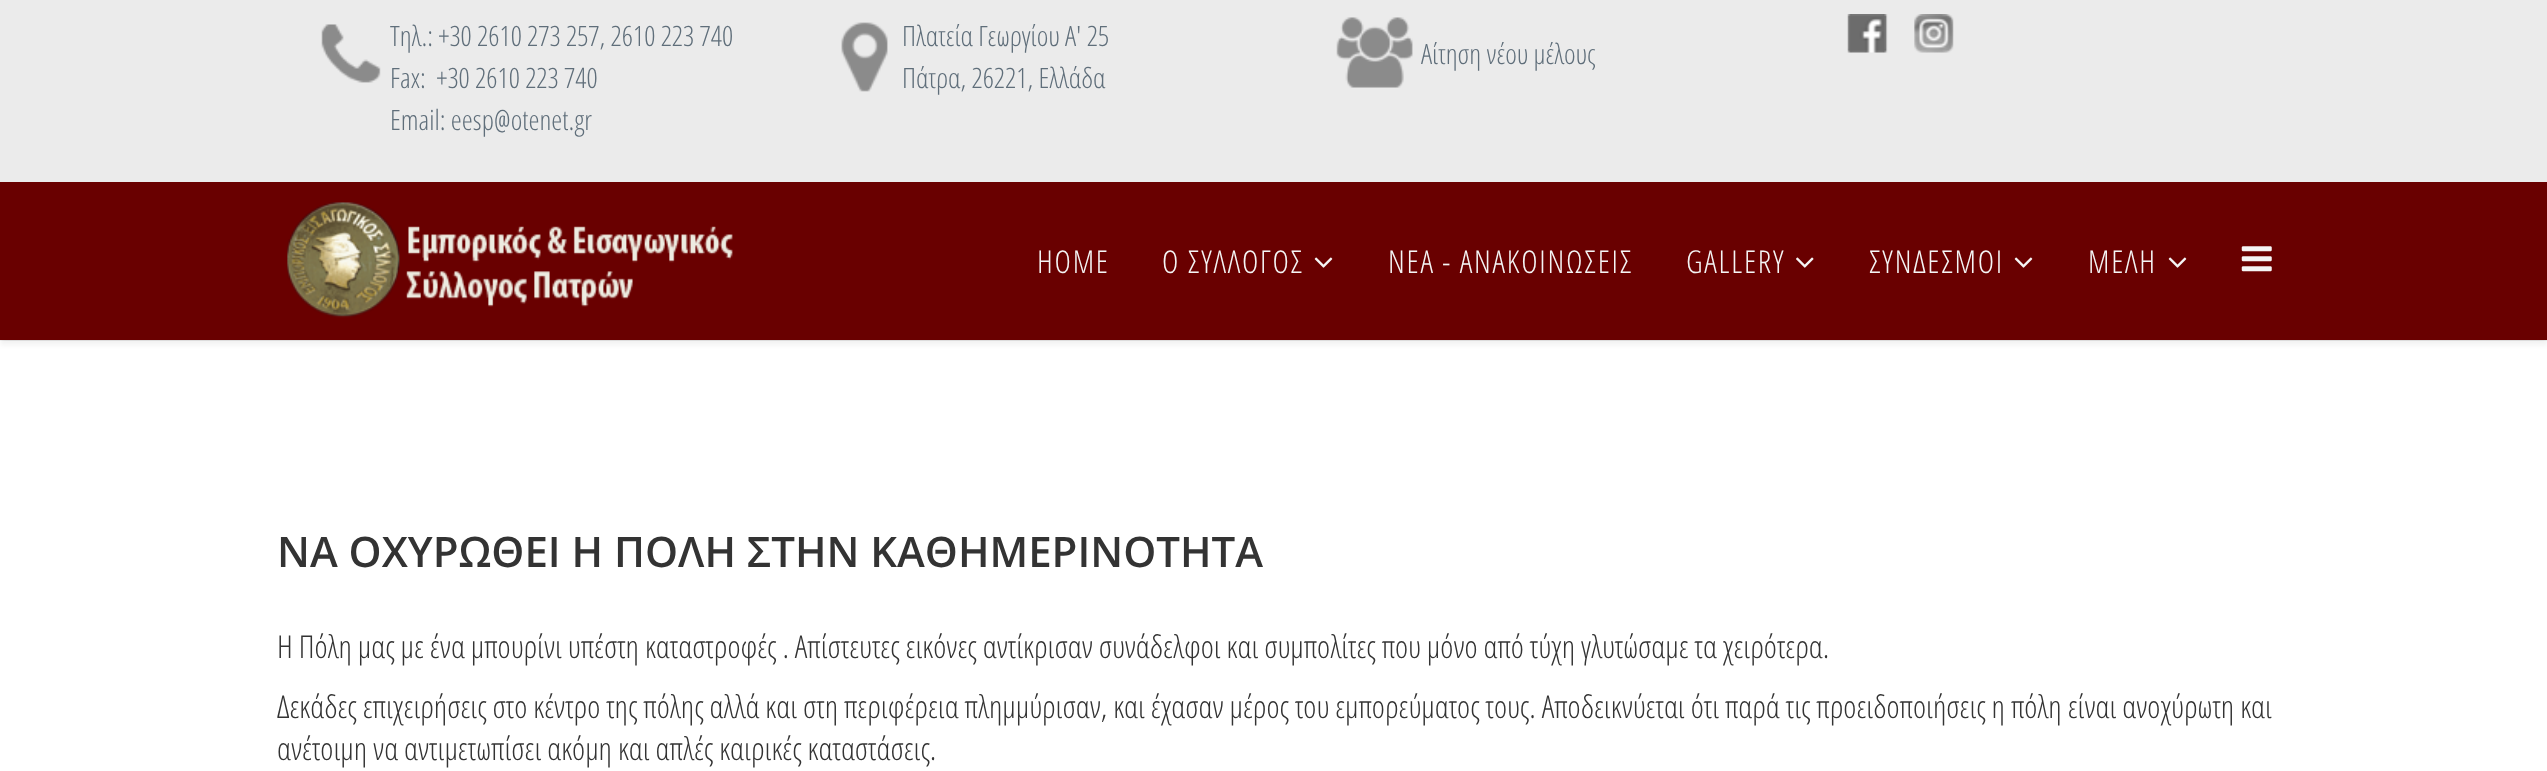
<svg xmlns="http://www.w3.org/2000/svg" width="2547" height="771">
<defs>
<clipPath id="clip1"><path d="M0 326h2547v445h-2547zm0 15h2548v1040h-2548z" clip-rule="evenodd"/></clipPath>
</defs>
<rect width="100%" height="100%" fill="#fff"/>
<rect width="2547" height="182" fill="#ebebeb"/>
<image x="321" y="24" width="60" height="59" href="media/1.png"/>
<text x="390" y="46" style="font-family:Open Sans Condensed;font-size:28px;font-weight:300;fill:#5f6e7a">Τηλ.: +30 2610 273 257, 2610 223 740</text>
<text x="390" y="88" style="font-family:Open Sans Condensed;font-size:28px;font-weight:300;fill:#5f6e7a" xml:space="preserve">Fax:  +30 2610 223 740</text>
<text x="390" y="130" style="font-family:Open Sans Condensed;font-size:28px;font-weight:300;fill:#5f6e7a">Email: eesp@otenet.gr</text>
<image x="841" y="22" width="47" height="70" href="media/2.png"/>
<text x="902" y="46" style="font-family:Open Sans Condensed;font-size:28px;font-weight:300;fill:#5f6e7a">Πλατεία Γεωργίου Α' 25</text>
<text x="902" y="88" style="font-family:Open Sans Condensed;font-size:28px;font-weight:300;fill:#5f6e7a">Πάτρα, 26221, Ελλάδα</text>
<image x="1336" y="17" width="77" height="71" href="media/3.png"/>
<text x="1421" y="64" style="font-family:Open Sans Condensed;font-size:28px;font-weight:300;fill:#5f6e7a">Αίτηση νέου μέλους</text>
<image x="1847" y="14" width="41" height="39" href="media/4.png"/>
<image x="1914" y="14" width="40" height="39" href="media/5.png"/>
<rect y="187" width="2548" height="158" fill="#0000000d" filter="blur(2.5px)"/>
<g clip-path="url(#clip1)">
<rect y="341" width="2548" height="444" fill="#00000033" filter="blur(4.5px)"/>
</g>
<rect y="182" width="2547" height="158" fill="#690000"/>
<image x="287" y="202" width="446" height="116" href="media/6.png"/>
<text x="1037" y="273" style="font-family:Open Sans Condensed;font-size:31.5px;font-weight:300;letter-spacing:1.75px;fill:#f5f5f5">HOME</text>
<text x="1162" y="273" style="font-family:Open Sans Condensed;font-size:31.5px;font-weight:300;letter-spacing:1.75px;fill:#f5f5f5">Ο ΣΥΛΛΟΓΟΣ</text>
<image x="1314" y="257" width="19" height="11" href="media/7.png"/>
<text x="1388" y="273" style="font-family:Open Sans Condensed;font-size:31.5px;font-weight:300;letter-spacing:1.75px;fill:#f5f5f5">NEA - ANAΚΟΙΝΩΣΕΙΣ</text>
<text x="1686" y="273" style="font-family:Open Sans Condensed;font-size:31.5px;font-weight:300;letter-spacing:1.75px;fill:#f5f5f5">GALLERY</text>
<image x="1796" y="257" width="18" height="11" href="media/8.png"/>
<text x="1869" y="273" style="font-family:Open Sans Condensed;font-size:31.5px;font-weight:300;letter-spacing:1.75px;fill:#f5f5f5">ΣΥΝΔΕΣΜΟΙ</text>
<image x="2014" y="257" width="19" height="11" href="media/9.png"/>
<text x="2088" y="273" style="font-family:Open Sans Condensed;font-size:31.5px;font-weight:300;letter-spacing:1.75px;fill:#f5f5f5">ΜΕΛΗ</text>
<image x="2168" y="257" width="19" height="11" href="media/7.png"/>
<image x="2241" y="246" width="31" height="26" href="media/10.png"/>
<text x="277" y="567" style="font-family:Open Sans;font-size:42px;font-weight:600;fill:#333">ΝΑ ΟΧΥΡΩΘΕΙ Η ΠΟΛΗ ΣΤΗΝ ΚΑΘΗΜΕΡΙΝΟΤΗΤΑ</text>
<text x="277" y="658" style="font-family:Open Sans Condensed;font-size:31.5px;font-weight:300;fill:#333">Η Πόλη μας με ένα μπουρίνι υπέστη καταστροφές . Απίστευτες εικόνες αντίκρισαν συνάδελφοι και συμπολίτες που μόνο από τύχη γλυτώσαμε τα χειρότερα.</text>
<text x="277" y="718" style="font-family:Open Sans Condensed;font-size:31.5px;font-weight:300;fill:#333">Δεκάδες επιχειρήσεις στο κέντρο της πόλης αλλά και στη περιφέρεια πλημμύρισαν, και έχασαν μέρος του εμπορεύματος τους. Αποδεικνύεται ότι παρά τις προειδοποιήσεις η πόλη είναι ανοχύρωτη και</text>
<text x="277" y="760" style="font-family:Open Sans Condensed;font-size:31.5px;font-weight:300;fill:#333">ανέτοιμη να αντιμετωπίσει ακόμη και απλές καιρικές καταστάσεις.</text>
</svg>
